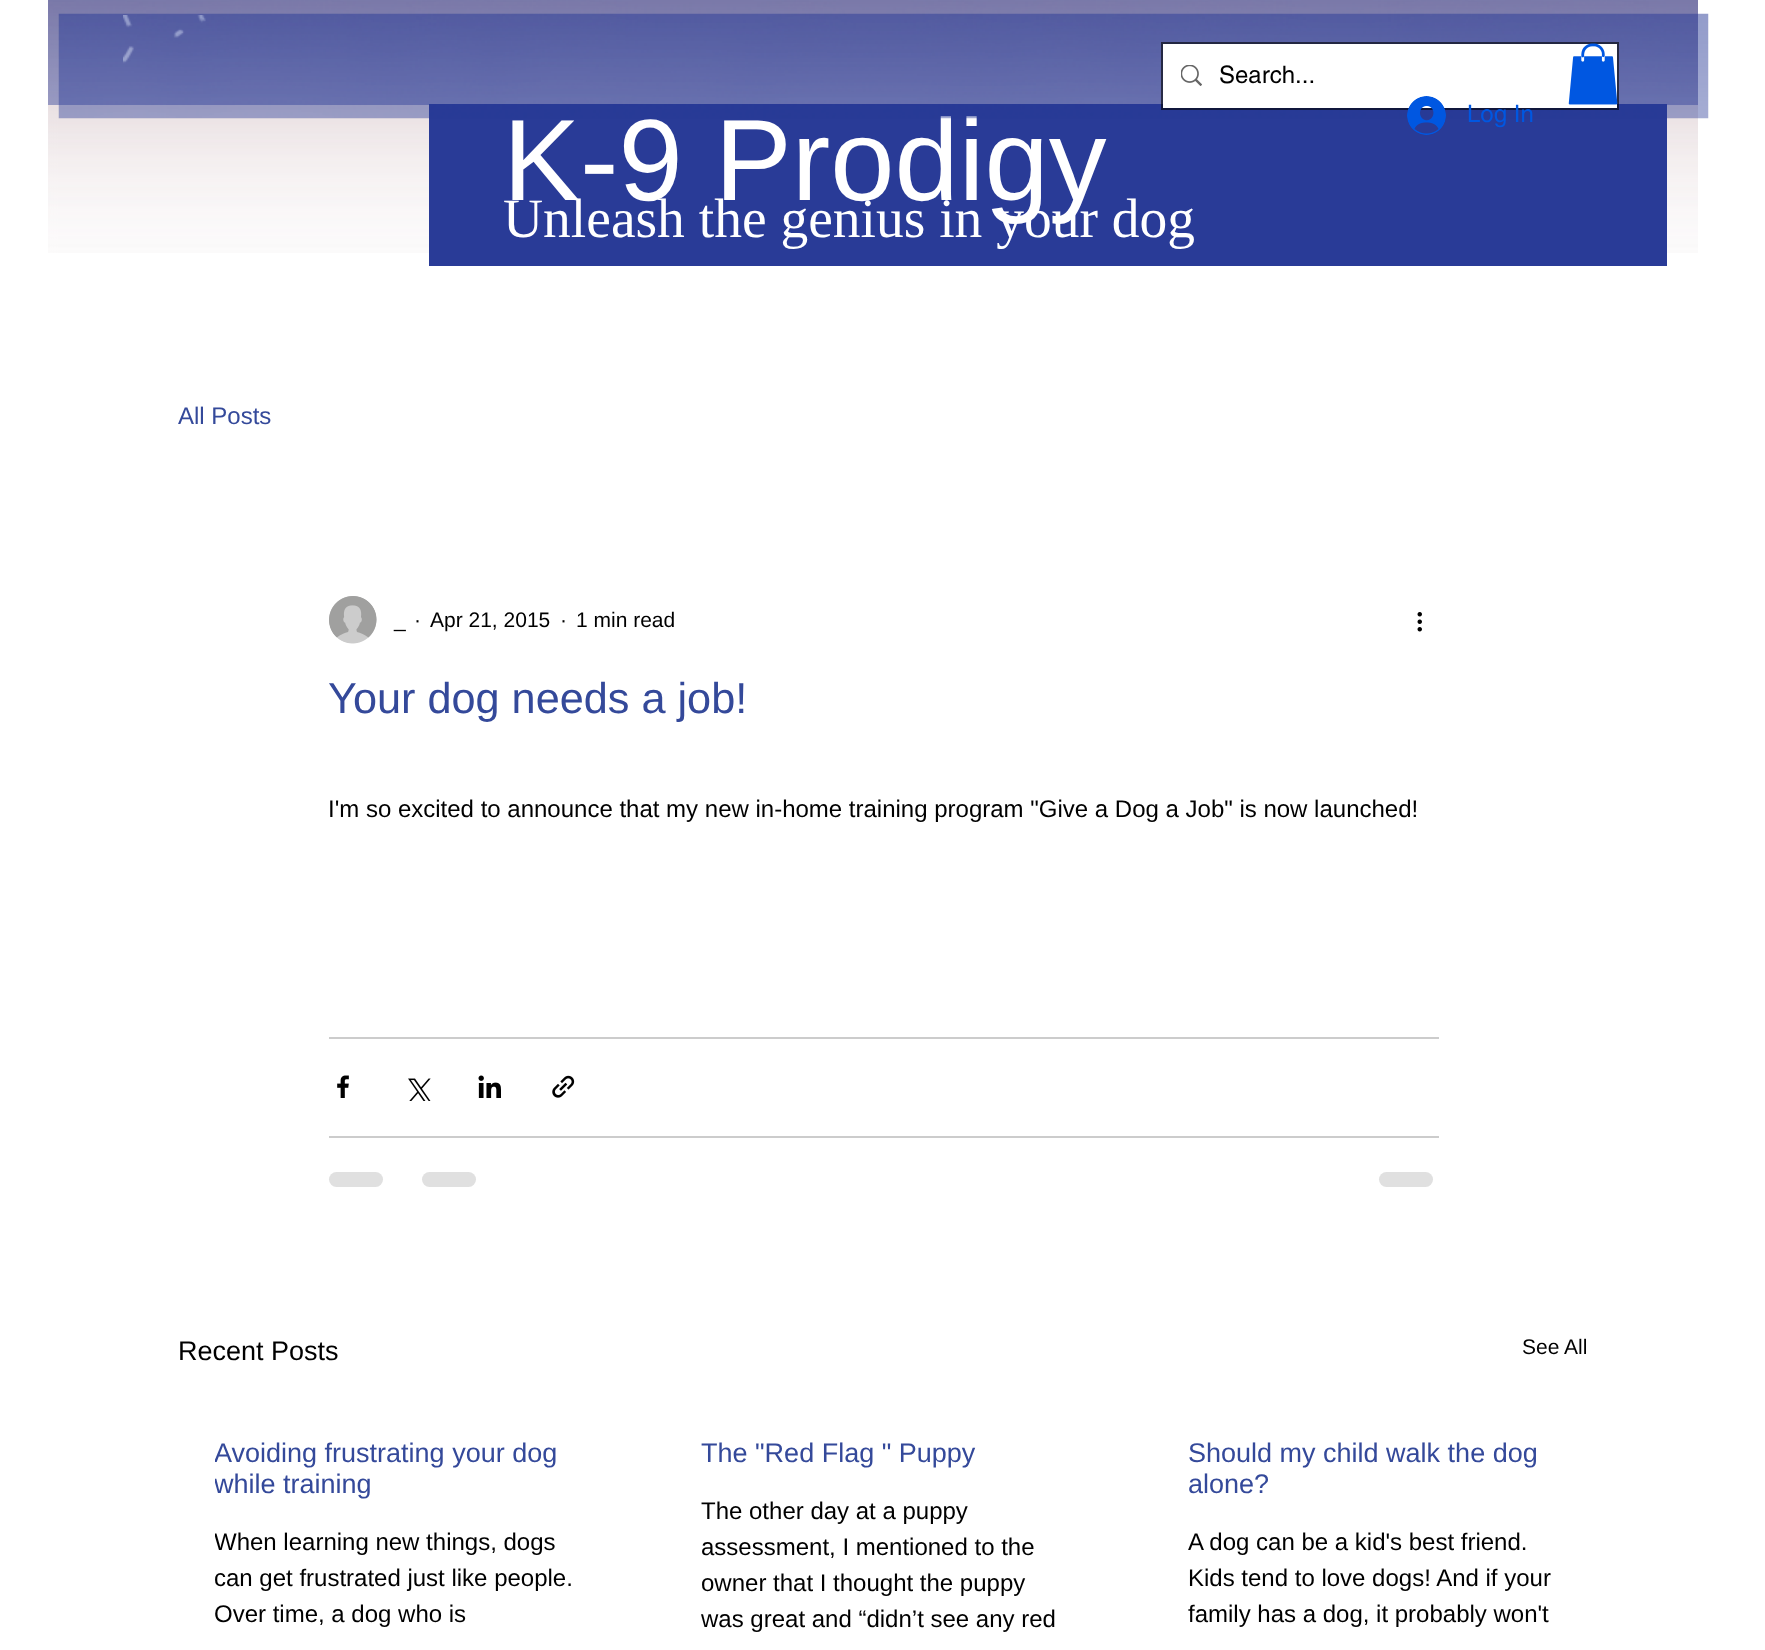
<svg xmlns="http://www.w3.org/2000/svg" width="1765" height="1650">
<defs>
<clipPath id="clip1"><rect x="215" y="1437" width="363" height="63"/></clipPath>
<clipPath id="clip2"><rect x="215" y="1524" width="363" height="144"/></clipPath>
</defs>
<rect width="100%" height="100%" fill="#fff"/>
<image x="48" y="0" width="1650" height="253" href="media/3.png"/>
<image x="48" y="0" width="1650" height="105" href="media/4.png"/>
<image x="123" y="15" width="83" height="49" href="media/6.png"/>
<rect x="429" y="104" width="1238" height="162" fill="#293b97"/>
<text x="503" y="200" style="font-family:Liberation Sans;font-size:115.5px;fill:#fff">K-9 Prodigy</text>
<image x="58" y="13" width="1651" height="106" href="media/5.png"/>
<rect x="1162" y="43" width="456" height="66" fill="none" stroke="#00000099" stroke-width="2"/>
<rect x="1163" y="44" width="454" height="64" fill="#fff"/>
<image x="1181" y="65" width="21" height="21" href="media/1.png"/>
<text x="1219" y="83" style="font-family:helvetica;font-size:24px;fill:#000">Search...</text>
<image x="1568" y="43" width="50" height="62" href="media/2.png"/>
<text x="503" y="237" style="font-family:Liberation Serif;font-size:55.5px;fill:#fff">Unleash the genius in your dog</text>
<image x="1407" y="96" width="39" height="39" href="media/7.png"/>
<text x="1467" y="122" style="font-family:helvetica;font-size:24px;fill:#0057e1">Log In</text>
<text x="178" y="424" style="font-family:Liberation Sans;font-size:24px;fill:#34499a">All Posts</text>
<image x="329" y="596" width="48" height="48" href="media/8.png"/>
<text x="394" y="627" style="font-family:Liberation Sans;font-size:21px;fill:#000">_</text>
<text x="414" y="627" style="font-family:Liberation Sans;font-size:21px;fill:#000">·</text>
<text x="430" y="627" style="font-family:Liberation Sans;font-size:21px;fill:#000">Apr 21, 2015</text>
<text x="560" y="627" style="font-family:Liberation Sans;font-size:21px;fill:#000">·</text>
<text x="576" y="627" style="font-family:Liberation Sans;font-size:21px;fill:#000">1 min read</text>
<image x="1417" y="612" width="5" height="20" href="media/9.png"/>
<text x="328" y="713" style="font-family:Liberation Sans;font-size:43.25px;fill:#34499a">Your dog needs a job!</text>
<text x="328" y="817" style="font-family:Liberation Sans;font-size:24px;fill:#000">I'm so excited to announce that my new in-home training program "Give a Dog a Job" is now launched!</text>
<rect x="329" y="1037" width="1110" height="2" fill="#ccc"/>
<image x="337" y="1075" width="12" height="23" href="media/10.png"/>
<image x="408" y="1078" width="23" height="23" href="media/11.png"/>
<image x="478" y="1075" width="23" height="23" href="media/12.png"/>
<image x="552" y="1075" width="23" height="23" href="media/13.png"/>
<rect x="329" y="1136" width="1110" height="2" fill="#ccc"/>
<rect x="329" y="1172" width="54" height="15" rx="7.5" fill="#e0e0e0"/>
<rect x="422" y="1172" width="54" height="15" rx="7.5" fill="#e0e0e0"/>
<rect x="1379" y="1172" width="54" height="15" rx="7.5" fill="#e0e0e0"/>
<text x="178" y="1360" style="font-family:Liberation Sans;font-size:27px;fill:#000">Recent Posts</text>
<text x="1522" y="1354" style="font-family:Liberation Sans;font-size:21px;fill:#000">See All</text>
<g clip-path="url(#clip1)">
<text x="214" y="1462" style="font-family:Liberation Sans;font-size:27px;fill:#34499a">Avoiding frustrating your dog</text>
<text x="214" y="1493" style="font-family:Liberation Sans;font-size:27px;fill:#34499a">while training</text>
</g>
<g clip-path="url(#clip2)">
<text x="214" y="1550" style="font-family:Liberation Sans;font-size:24px;fill:#000">When learning new things, dogs</text>
<text x="214" y="1586" style="font-family:Liberation Sans;font-size:24px;fill:#000">can get frustrated just like people.</text>
</g>
<text x="214" y="1622" style="font-family:Liberation Sans;font-size:24px;fill:#000">Over time, a dog who is</text>
<text x="701" y="1462" style="font-family:Liberation Sans;font-size:27px;fill:#34499a">The "Red Flag " Puppy</text>
<text x="701" y="1519" style="font-family:Liberation Sans;font-size:24px;fill:#000">The other day at a puppy</text>
<text x="701" y="1555" style="font-family:Liberation Sans;font-size:24px;fill:#000">assessment, I mentioned to the</text>
<text x="701" y="1591" style="font-family:Liberation Sans;font-size:24px;fill:#000">owner that I thought the puppy</text>
<text x="701" y="1627" style="font-family:Liberation Sans;font-size:24px;fill:#000">was great and “didn’t see any red</text>
<text x="1188" y="1462" style="font-family:Liberation Sans;font-size:27px;fill:#34499a">Should my child walk the dog</text>
<text x="1188" y="1493" style="font-family:Liberation Sans;font-size:27px;fill:#34499a">alone?</text>
<text x="1188" y="1550" style="font-family:Liberation Sans;font-size:24px;fill:#000">A dog can be a kid's best friend.</text>
<text x="1188" y="1586" style="font-family:Liberation Sans;font-size:24px;fill:#000">Kids tend to love dogs! And if your</text>
<text x="1188" y="1622" style="font-family:Liberation Sans;font-size:24px;fill:#000">family has a dog, it probably won't</text>
</svg>
